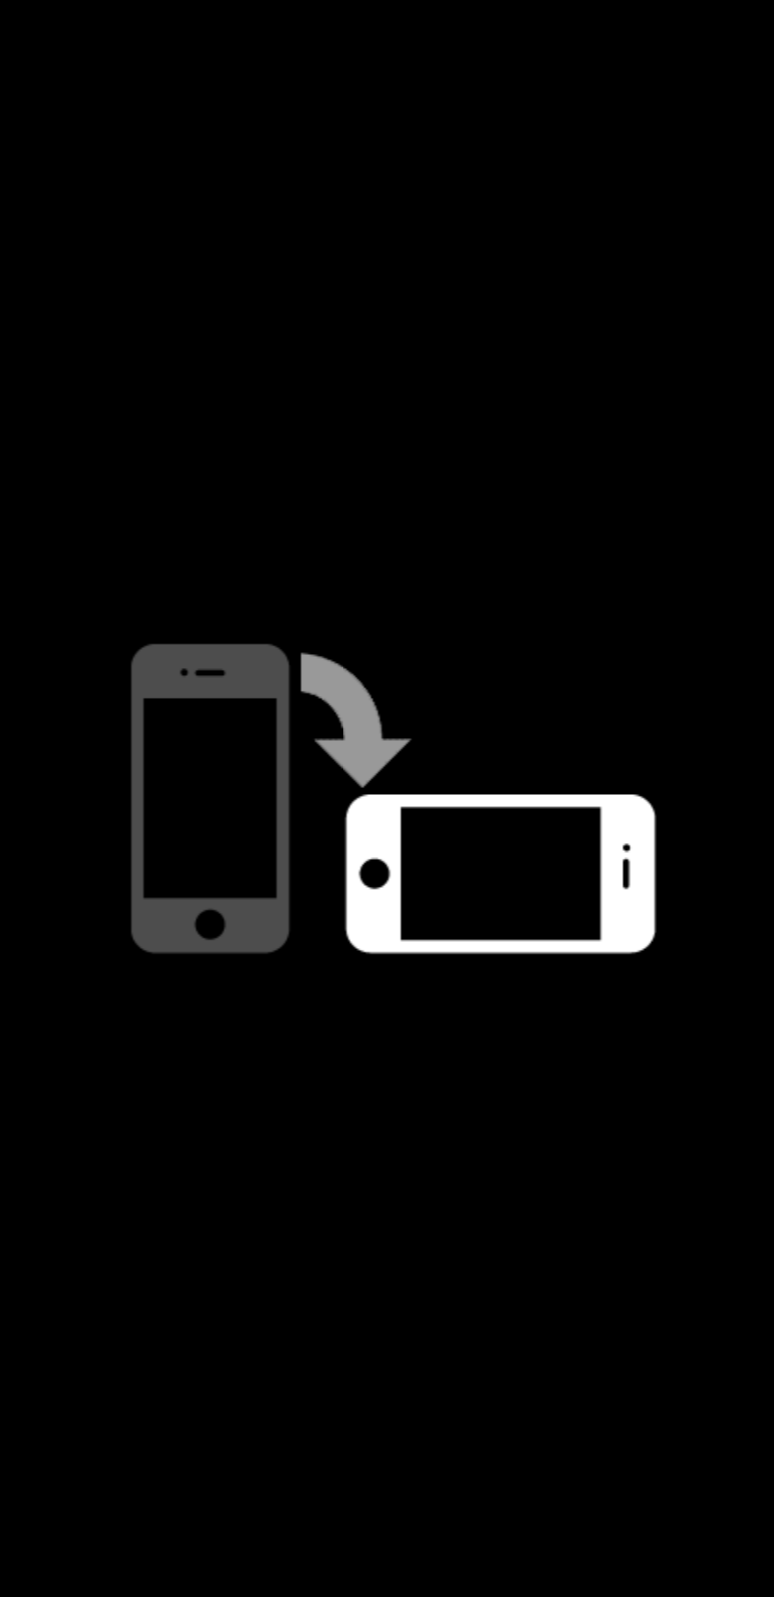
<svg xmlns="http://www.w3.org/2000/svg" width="774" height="1597">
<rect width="100%" height="100%" fill="#000"/>
<image x="130" y="643" width="527" height="312" href="media/1.png"/>
</svg>
